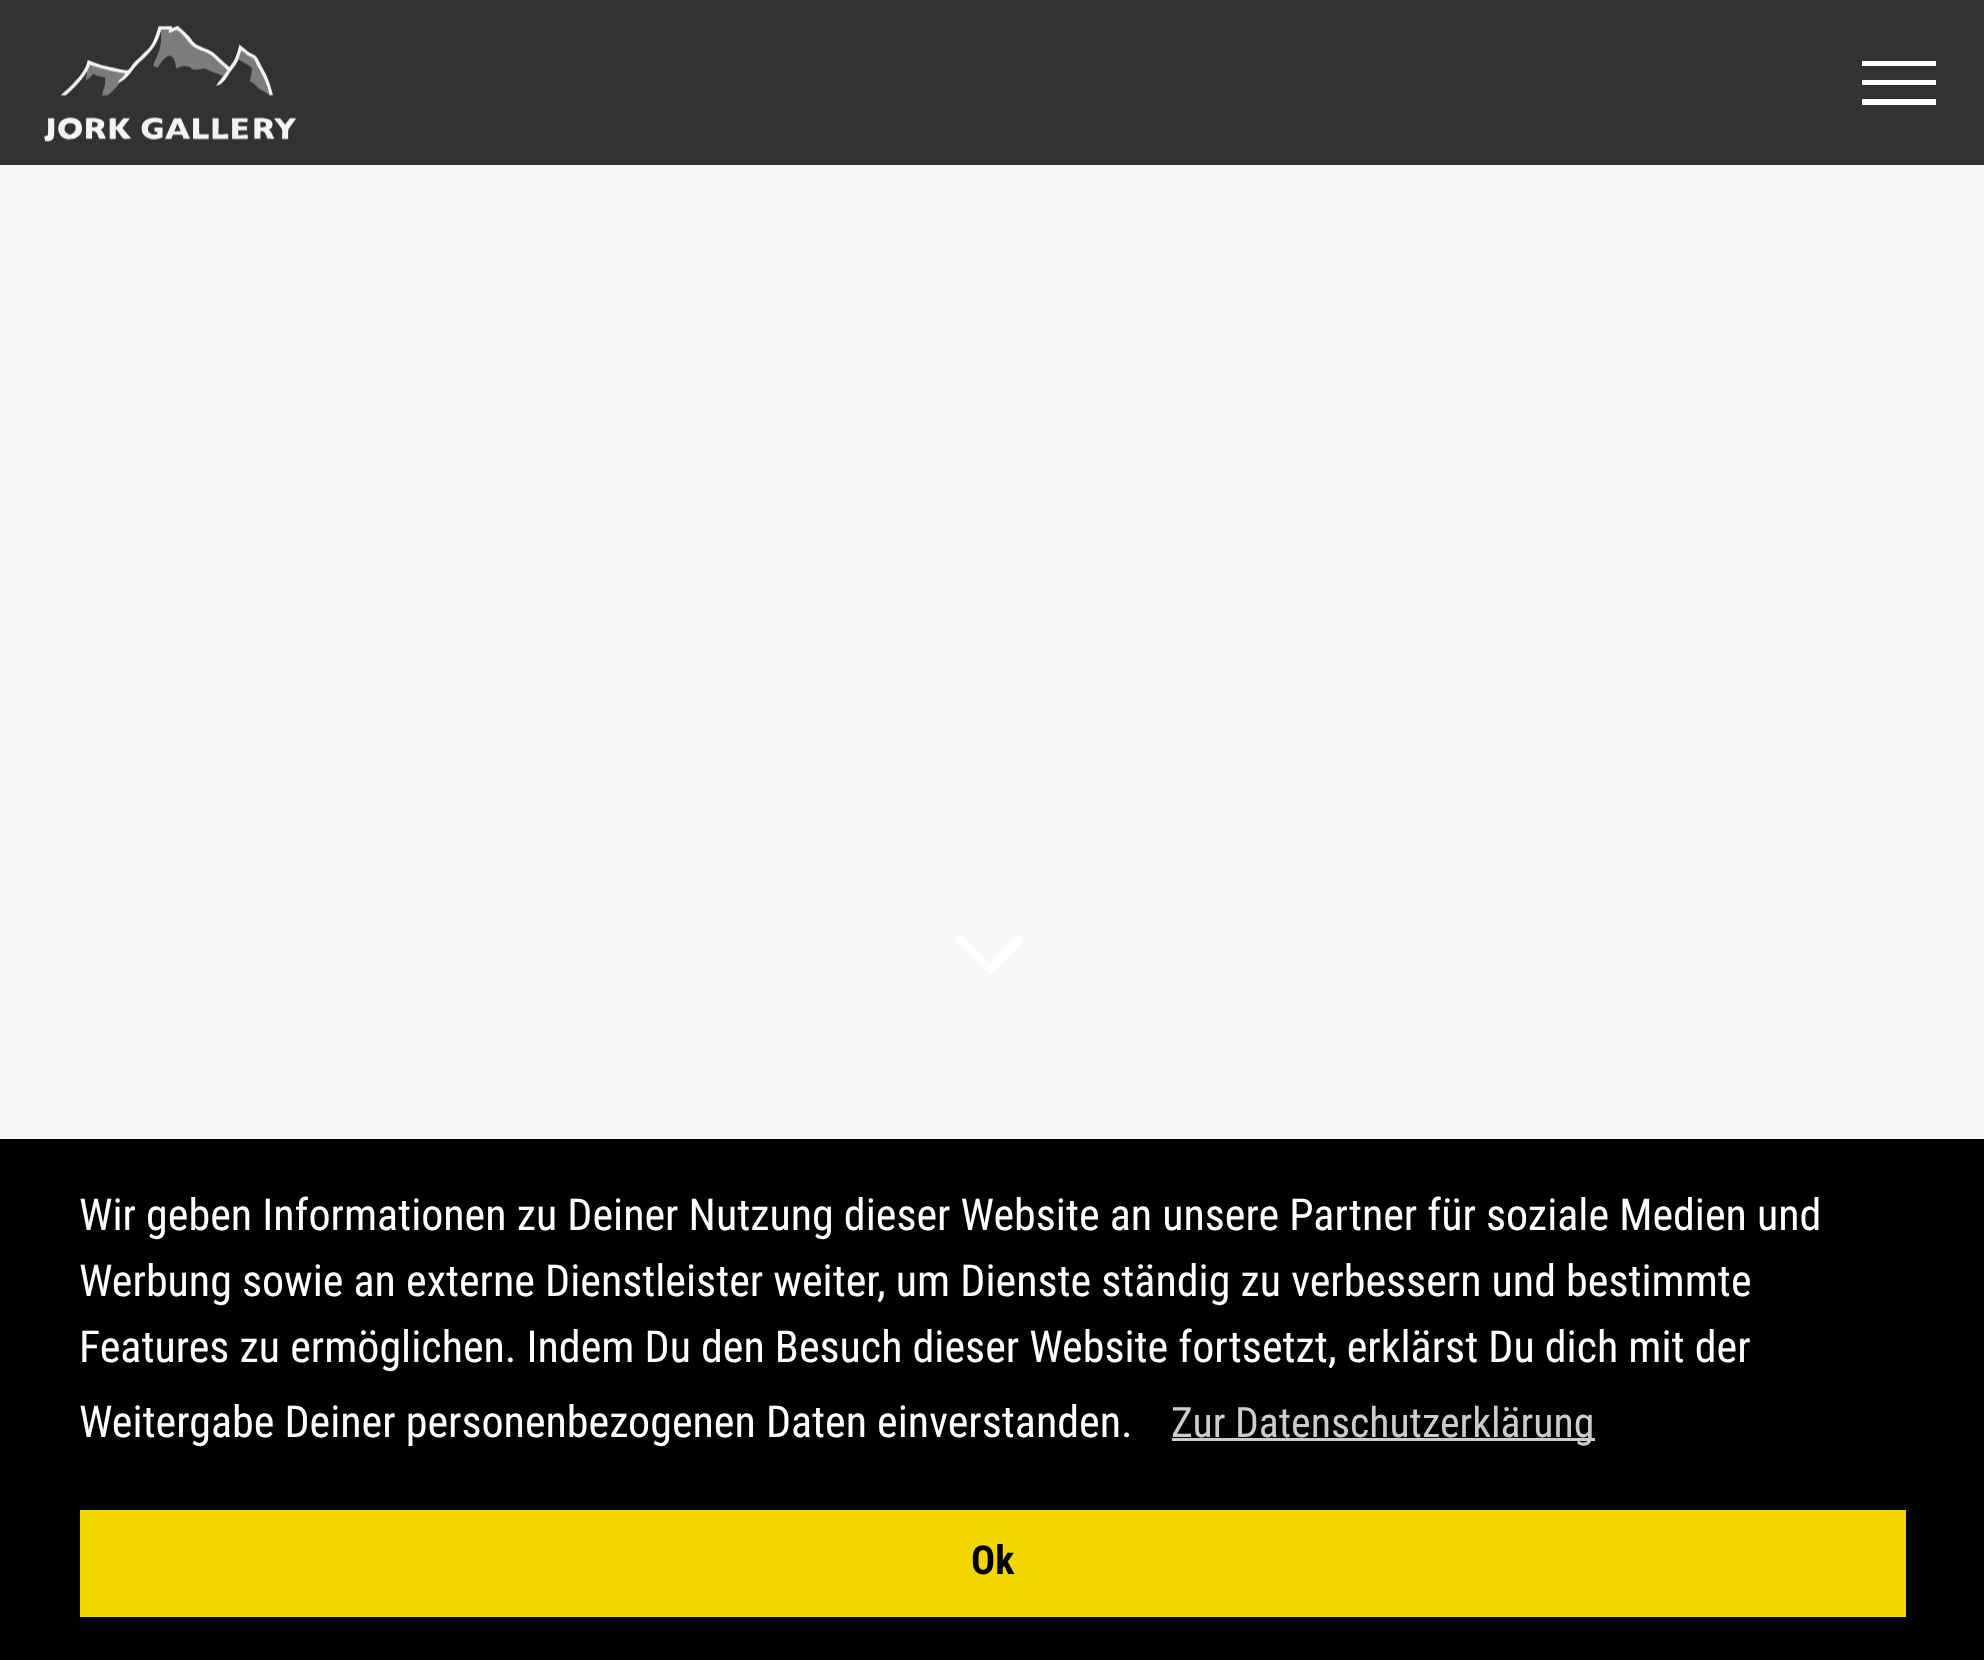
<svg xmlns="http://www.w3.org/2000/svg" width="1984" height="1660">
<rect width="100%" height="100%" fill="#f8f8f8"/>
<rect width="1984" height="165" fill="#323232"/>
<image x="44" y="25" width="252" height="117" href="media/1.png"/>
<rect x="1862" y="61" width="74" height="5" fill="#fff"/>
<rect x="1862" y="80" width="74" height="5" fill="#fff"/>
<rect x="1862" y="99" width="74" height="6" fill="#fff"/>
<path d="M984 969l35-35l6 6l-35 35z" fill="#fff"/>
<path d="M955 940l6-6l35 35l-6 6z" fill="#fff"/>
<rect y="1139" width="1984" height="521" fill="#000"/>
<text x="79" y="1230" style="font-family:Roboto Condensed;font-size:44px;fill:#fff">Wir geben Informationen zu Deiner Nutzung dieser Website an unsere Partner für soziale Medien und</text>
<text x="79" y="1296" style="font-family:Roboto Condensed;font-size:44px;fill:#fff">Werbung sowie an externe Dienstleister weiter, um Dienste ständig zu verbessern und bestimmte</text>
<text x="79" y="1362" style="font-family:Roboto Condensed;font-size:44px;fill:#fff">Features zu ermöglichen. Indem Du den Besuch dieser Website fortsetzt, erklärst Du dich mit der</text>
<text x="79" y="1437" style="font-family:Roboto Condensed;font-size:44px;fill:#fff">Weitergabe Deiner personenbezogenen Daten einverstanden.</text>
<rect x="1172" y="1438" width="423" height="3" fill="#ccc"/>
<text x="1171" y="1437" style="font-family:Roboto Condensed;font-size:41.75px;fill:#ccc">Zur Datenschutzerklärung</text>
<rect x="80" y="1510" width="1826" height="107" fill="#f1d600"/>
<text x="971" y="1574" style="font-family:Roboto Condensed;font-size:40px;font-weight:bold;fill:#000">Ok</text>
</svg>
